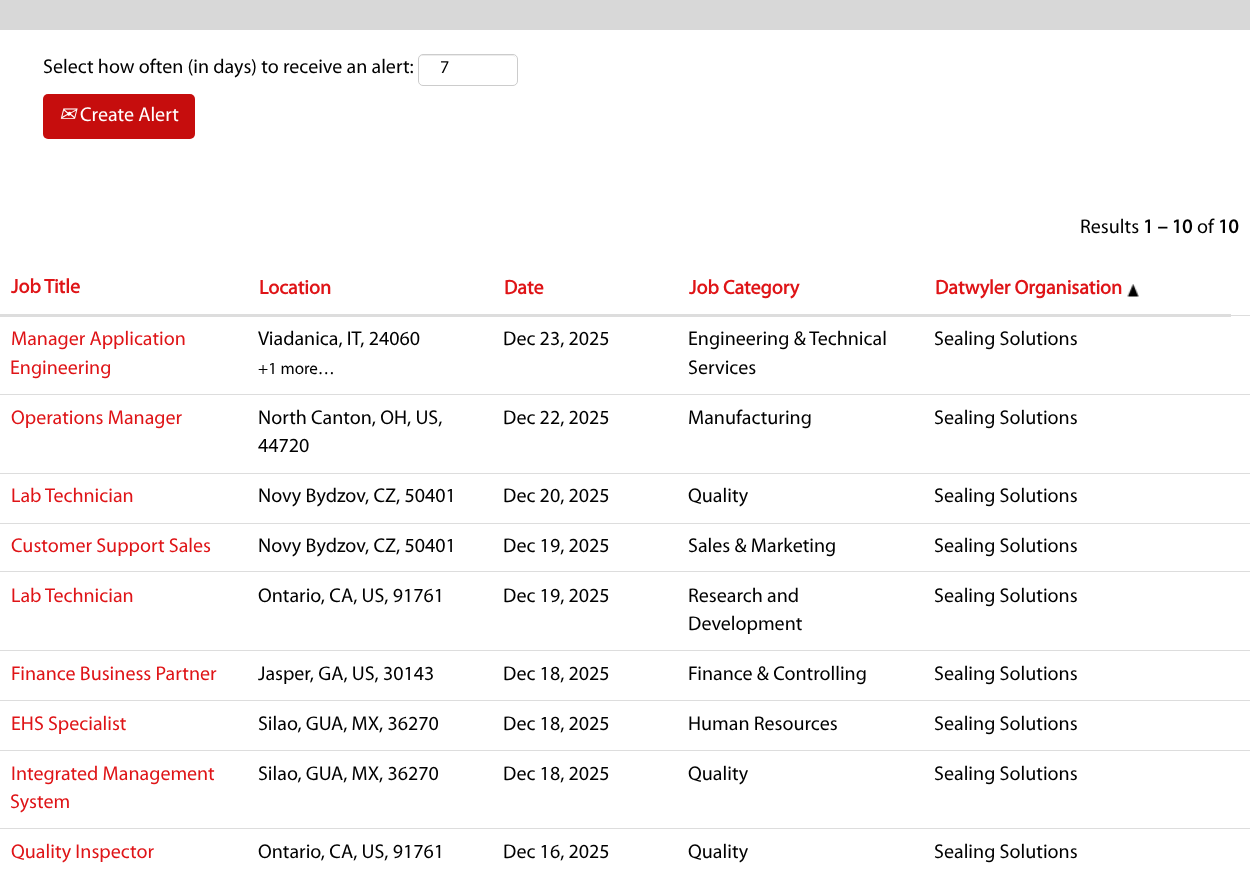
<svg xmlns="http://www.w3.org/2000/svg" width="1250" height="873">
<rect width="100%" height="100%" fill="#fff"/>
<rect width="1250" height="30" fill="#d8d8d8"/>
<text x="43" y="73" style="font-family:Myriad;font-size:20px;fill:#000">Select how often (in days) to receive an alert:</text>
<path d="M422 56h90c3 0 4 2 4 4c0-9-14-5-19-5h-59c-5 0-19-4-19 5c0-2 1-4 3-4z" fill="#ececec"/>
<rect x="418.5" y="54.5" width="99" height="31" rx="4.5" fill="none" stroke="#ccc"/>
<text x="440" y="73" style="font-family:Myriad;font-size:18px;fill:#000">7</text>
<rect x="43" y="94" width="152" height="45" rx="5" fill="#c60d0d"/>
<text x="59" y="121" style="font-family:DejaVu Sans;font-size:20px;font-style:italic;fill:#fff">✉</text>
<text x="80" y="121" style="font-family:Myriad;font-size:20px;fill:#fff">Create Alert</text>
<text x="1080" y="233" style="font-family:Myriad;font-size:20px;fill:#000">Results</text>
<text x="1143" y="233" style="font-family:Myriad;font-size:20px;font-weight:bold;fill:#000">1 – 10</text>
<text x="1197" y="233" style="font-family:Myriad;font-size:20px;fill:#000">of</text>
<text x="1218" y="233" style="font-family:Myriad;font-size:20px;font-weight:bold;fill:#000">10</text>
<text x="11" y="293" style="font-family:Myriad;font-size:20px;font-weight:bold;fill:#df1417">Job Title</text>
<text x="259" y="294" style="font-family:Myriad;font-size:20px;font-weight:bold;fill:#df1417">Location</text>
<text x="504" y="294" style="font-family:Myriad;font-size:20px;font-weight:bold;fill:#df1417">Date</text>
<text x="689" y="294" style="font-family:Myriad;font-size:20px;font-weight:bold;fill:#df1417">Job Category</text>
<rect x="1230" y="315" width="20" height="1" fill="#ddd"/>
<rect y="314" width="1231" height="3" fill="#ddd"/>
<text x="935" y="294" style="font-family:Myriad;font-size:20px;font-weight:bold;fill:#df1417">Datwyler Organisation</text>
<image x="1127" y="284" width="12" height="13" href="media/1.png"/>
<text x="11" y="345" style="font-family:Myriad;font-size:20px;fill:#df1417">Manager Application</text>
<text x="10" y="374" style="font-family:Myriad;font-size:20px;fill:#df1417">Engineering</text>
<text x="258" y="345" style="font-family:Myriad;font-size:20px;fill:#000">Viadanica, IT, 24060</text>
<text x="258" y="374" style="font-family:Myriad;font-size:17px;fill:#000">+1 more…</text>
<text x="503" y="345" style="font-family:Myriad;font-size:20px;fill:#000">Dec 23, 2025</text>
<text x="688" y="345" style="font-family:Myriad;font-size:20px;fill:#000">Engineering &amp; Technical</text>
<text x="688" y="374" style="font-family:Myriad;font-size:20px;fill:#000">Services</text>
<text x="934" y="345" style="font-family:Myriad;font-size:20px;fill:#000">Sealing Solutions</text>
<rect y="394" width="1250" height="1" fill="#ddd"/>
<text x="11" y="424" style="font-family:Myriad;font-size:20px;fill:#df1417">Operations Manager</text>
<text x="258" y="424" style="font-family:Myriad;font-size:20px;fill:#000">North Canton, OH, US,</text>
<text x="258" y="452" style="font-family:Myriad;font-size:20px;fill:#000">44720</text>
<text x="503" y="424" style="font-family:Myriad;font-size:20px;fill:#000">Dec 22, 2025</text>
<text x="688" y="424" style="font-family:Myriad;font-size:20px;fill:#000">Manufacturing</text>
<text x="934" y="424" style="font-family:Myriad;font-size:20px;fill:#000">Sealing Solutions</text>
<rect y="473" width="1250" height="1" fill="#ddd"/>
<text x="11" y="502" style="font-family:Myriad;font-size:20px;fill:#df1417">Lab Technician</text>
<text x="258" y="502" style="font-family:Myriad;font-size:20px;fill:#000">Novy Bydzov, CZ, 50401</text>
<text x="503" y="502" style="font-family:Myriad;font-size:20px;fill:#000">Dec 20, 2025</text>
<text x="688" y="502" style="font-family:Myriad;font-size:20px;fill:#000">Quality</text>
<text x="934" y="502" style="font-family:Myriad;font-size:20px;fill:#000">Sealing Solutions</text>
<rect y="523" width="1250" height="1" fill="#ddd"/>
<text x="11" y="552" style="font-family:Myriad;font-size:20px;fill:#df1417">Customer Support Sales</text>
<text x="258" y="552" style="font-family:Myriad;font-size:20px;fill:#000">Novy Bydzov, CZ, 50401</text>
<text x="503" y="552" style="font-family:Myriad;font-size:20px;fill:#000">Dec 19, 2025</text>
<text x="688" y="552" style="font-family:Myriad;font-size:20px;fill:#000">Sales &amp; Marketing</text>
<text x="934" y="552" style="font-family:Myriad;font-size:20px;fill:#000">Sealing Solutions</text>
<rect y="571" width="1250" height="1" fill="#ddd"/>
<text x="11" y="602" style="font-family:Myriad;font-size:20px;fill:#df1417">Lab Technician</text>
<text x="258" y="602" style="font-family:Myriad;font-size:20px;fill:#000">Ontario, CA, US, 91761</text>
<text x="503" y="602" style="font-family:Myriad;font-size:20px;fill:#000">Dec 19, 2025</text>
<text x="688" y="602" style="font-family:Myriad;font-size:20px;fill:#000">Research and</text>
<text x="688" y="630" style="font-family:Myriad;font-size:20px;fill:#000">Development</text>
<text x="934" y="602" style="font-family:Myriad;font-size:20px;fill:#000">Sealing Solutions</text>
<rect y="650" width="1250" height="1" fill="#ddd"/>
<text x="11" y="680" style="font-family:Myriad;font-size:20px;fill:#df1417">Finance Business Partner</text>
<text x="258" y="680" style="font-family:Myriad;font-size:20px;fill:#000">Jasper, GA, US, 30143</text>
<text x="503" y="680" style="font-family:Myriad;font-size:20px;fill:#000">Dec 18, 2025</text>
<text x="688" y="680" style="font-family:Myriad;font-size:20px;fill:#000">Finance &amp; Controlling</text>
<text x="934" y="680" style="font-family:Myriad;font-size:20px;fill:#000">Sealing Solutions</text>
<rect y="700" width="1250" height="1" fill="#ddd"/>
<text x="11" y="730" style="font-family:Myriad;font-size:20px;fill:#df1417">EHS Specialist</text>
<text x="258" y="730" style="font-family:Myriad;font-size:20px;fill:#000">Silao, GUA, MX, 36270</text>
<text x="503" y="730" style="font-family:Myriad;font-size:20px;fill:#000">Dec 18, 2025</text>
<text x="688" y="730" style="font-family:Myriad;font-size:20px;fill:#000">Human Resources</text>
<text x="934" y="730" style="font-family:Myriad;font-size:20px;fill:#000">Sealing Solutions</text>
<rect y="750" width="1250" height="1" fill="#ddd"/>
<text x="11" y="780" style="font-family:Myriad;font-size:20px;fill:#df1417">Integrated Management</text>
<text x="10" y="808" style="font-family:Myriad;font-size:20px;fill:#df1417">System</text>
<text x="258" y="780" style="font-family:Myriad;font-size:20px;fill:#000">Silao, GUA, MX, 36270</text>
<text x="503" y="780" style="font-family:Myriad;font-size:20px;fill:#000">Dec 18, 2025</text>
<text x="688" y="780" style="font-family:Myriad;font-size:20px;fill:#000">Quality</text>
<text x="934" y="780" style="font-family:Myriad;font-size:20px;fill:#000">Sealing Solutions</text>
<rect y="828" width="1250" height="1" fill="#ddd"/>
<text x="11" y="858" style="font-family:Myriad;font-size:20px;fill:#df1417">Quality Inspector</text>
<text x="258" y="858" style="font-family:Myriad;font-size:20px;fill:#000">Ontario, CA, US, 91761</text>
<text x="503" y="858" style="font-family:Myriad;font-size:20px;fill:#000">Dec 16, 2025</text>
<text x="688" y="858" style="font-family:Myriad;font-size:20px;fill:#000">Quality</text>
<text x="934" y="858" style="font-family:Myriad;font-size:20px;fill:#000">Sealing Solutions</text>
</svg>
